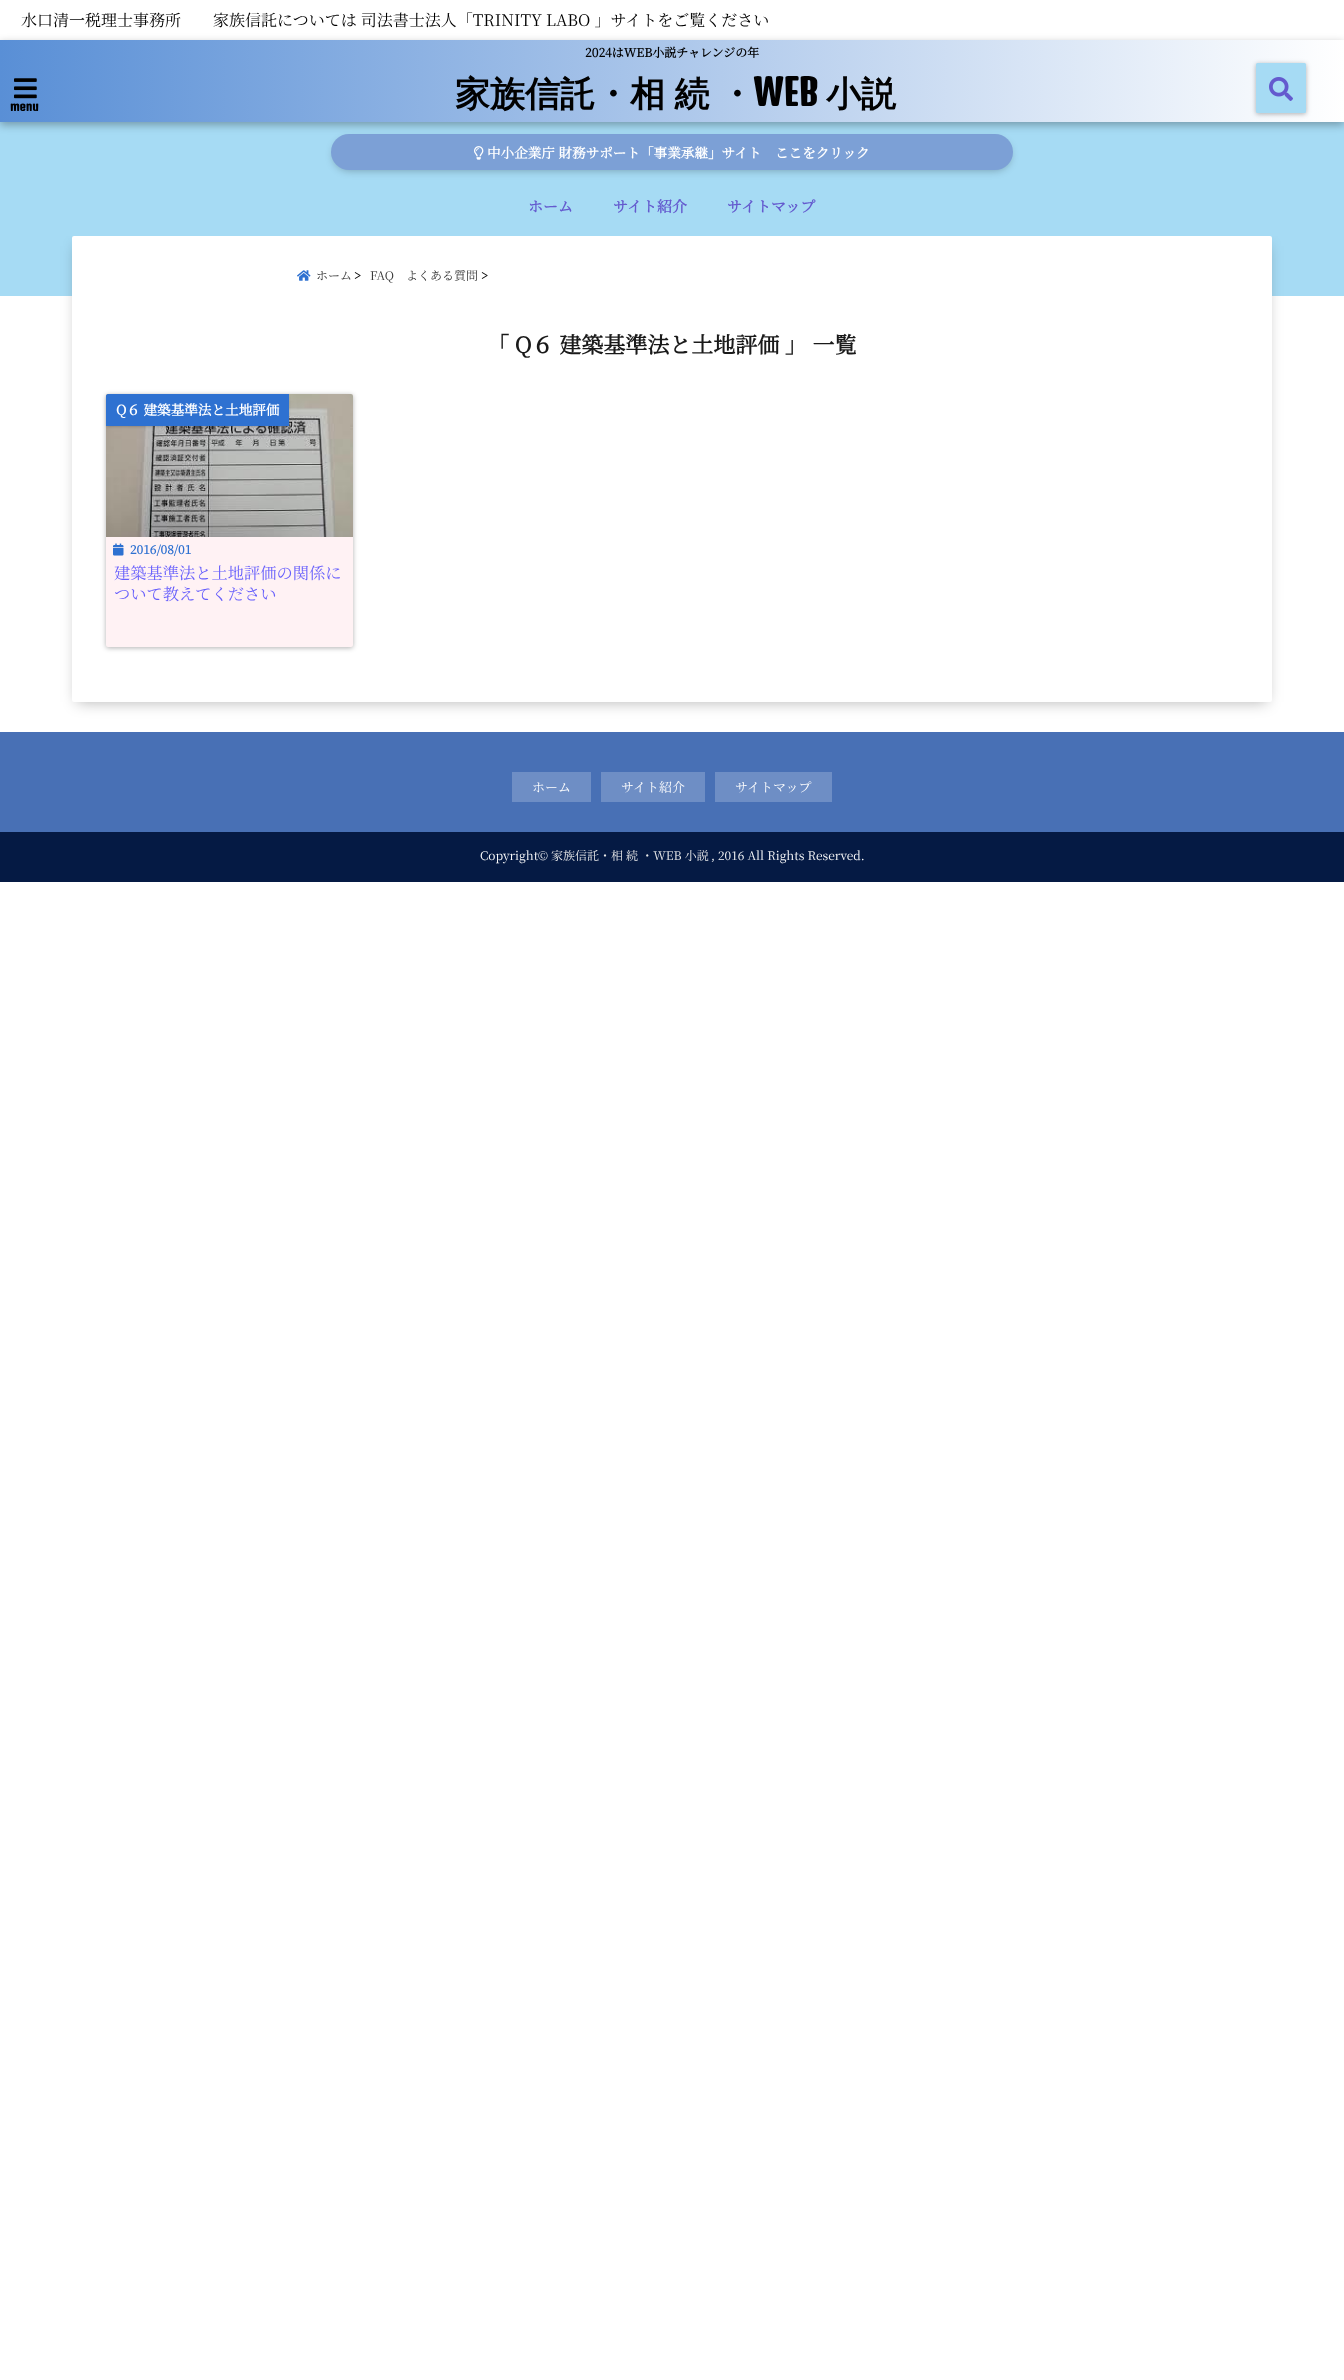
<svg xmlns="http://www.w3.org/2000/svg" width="1344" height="2380">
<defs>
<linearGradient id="g1" gradientUnits="userSpaceOnUse" x1="0" y1="81" x2="1344" y2="81"><stop offset="0" stop-color="#598fd6"/><stop offset="1" stop-color="#fff"/></linearGradient>
</defs>
<rect width="100%" height="100%" fill="#fff"/>
<text x="21" y="26" style="font-family:Noto Serif JP;font-size:16px;font-weight:200;fill:#010101">水口清一税理士事務所　　家族信託については 司法書士法人「TRINITY LABO 」サイトをご覧ください</text>
<rect y="122" width="1344" height="53" fill="#a6dbf4"/>
<rect y="236" width="1344" height="60" fill="#a6dbf4"/>
<rect x="77" y="246" width="1190" height="456" fill="#0000004d" filter="blur(7.5px)"/>
<rect y="175" width="1344" height="61" fill="#a6dbf4"/>
<rect x="334" y="140" width="676" height="30" rx="15" fill="#0000004d" filter="blur(4px)"/>
<rect x="331" y="134" width="682" height="36" rx="18" fill="#7ca0d6"/>
<rect y="43" width="1344" height="82" fill="#0000004d" filter="blur(4px)"/>
<rect y="40" width="1344" height="82" fill="url(#g1)"/>
<text x="585" y="57" style="font-family:Noto Serif JP;font-size:12px;font-weight:bold;fill:#010101">2024はWEB小説チャレンジの年</text>
<image x="14" y="78" width="23" height="21" href="media/1.png"/>
<text x="10" y="111" style="font-family:Denk One;font-size:12px;font-weight:bold;fill:#010101">menu</text>
<text x="455" y="106" word-spacing="-1" style="font-family:WenQuanYi Zen Hei;font-size:35px;font-weight:bold;fill:#010101">家族信託・相 続 ・</text>
<text x="753" y="106" style="font-family:Denk One;font-size:35px;font-weight:bold;fill:#010101">WEB</text>
<text x="826" y="106" style="font-family:WenQuanYi Zen Hei;font-size:35px;font-weight:bold;fill:#010101">小説</text>
<rect x="1256" y="64" width="50" height="50" rx="1.5" fill="#0000004d" filter="blur(2.5px)"/>
<rect x="1256" y="63" width="50" height="50" rx="1.5" fill="#a6dbf4"/>
<image x="1269" y="77" width="24" height="24" href="media/2.png"/>
<image x="474" y="146" width="10" height="14" href="media/3.png"/>
<text x="487" y="158" style="font-family:Noto Serif JP;font-size:13.6px;font-weight:bold;fill:#fff">中小企業庁 財務サポート「事業承継」サイト　ここをクリック</text>
<text x="528" y="212" style="font-family:Noto Serif JP;font-size:15px;font-weight:bold;fill:#645ace">ホーム</text>
<text x="613" y="212" style="font-family:Noto Serif JP;font-size:15px;font-weight:bold;fill:#645ace">サイト紹介</text>
<text x="727" y="212" style="font-family:Noto Serif JP;font-size:15px;font-weight:bold;fill:#645ace">サイトマップ</text>
<rect x="72" y="236" width="1200" height="466" rx="2" fill="#fff"/>
<image x="297" y="270" width="14" height="11" href="media/4.png"/>
<text x="316" y="280" style="font-family:Noto Serif JP;font-size:12px;font-weight:200;fill:#333">ホーム</text>
<text x="354" y="280" style="font-family:Noto Serif JP;font-size:12px;font-weight:bold;fill:#010101">&gt;</text>
<text x="370" y="280" style="font-family:Noto Serif JP;font-size:12px;font-weight:200;fill:#333">FAQ　よくある質問</text>
<text x="481" y="280" style="font-family:Noto Serif JP;font-size:12px;font-weight:bold;fill:#010101">&gt;</text>
<text x="487" y="353" style="font-family:Noto Serif JP;font-size:22px;font-weight:bold;fill:#1a1a1a">「 Q６ 建築基準法と土地評価 」 一覧</text>
<rect x="106" y="395" width="247" height="253" rx="2" fill="#0000004d" filter="blur(2.5px)"/>
<rect x="106" y="394" width="247" height="253" rx="2" fill="#fff2f4"/>
<image x="106" y="394" width="247" height="143" href="media/5.png"/>
<rect x="107" y="396" width="181" height="30" fill="#0000004d" filter="blur(1.5px)"/>
<path d="M108 394h181v32h-183v-30c0-1 1-2 2-2z" fill="#2e71d1"/>
<text x="116" y="415" style="font-family:Noto Serif JP;font-size:13.6px;font-weight:bold;fill:#fff">Q６ 建築基準法と土地評価</text>
<image x="113" y="543" width="11" height="13" href="media/6.png"/>
<text x="130" y="554" style="font-family:Noto Serif JP;font-size:12px;font-weight:bold;fill:#2e71d1">2016/08/01</text>
<text x="114" y="579" style="font-family:Noto Serif JP;font-size:16.25px;font-weight:200;fill:#675ffc">建築基準法と土地評価の関係に</text>
<text x="114" y="600" style="font-family:Noto Serif JP;font-size:16.25px;font-weight:200;fill:#675ffc">ついて教えてください</text>
<rect y="732" width="1344" height="100" fill="#4870b5"/>
<rect x="512" y="772" width="79" height="30" fill="#6e8ec5"/>
<text x="532" y="792" style="font-family:Noto Serif JP;font-size:13px;font-weight:200;fill:#fff">ホーム</text>
<rect x="601" y="772" width="104" height="30" fill="#6e8ec5"/>
<text x="621" y="792" style="font-family:Noto Serif JP;font-size:13px;font-weight:200;fill:#fff">サイト紹介</text>
<rect x="715" y="772" width="117" height="30" fill="#6e8ec5"/>
<text x="735" y="792" style="font-family:Noto Serif JP;font-size:13px;font-weight:200;fill:#fff">サイトマップ</text>
<rect y="832" width="1344" height="50" fill="#051a44"/>
<text x="480" y="860" style="font-family:Noto Serif JP;font-size:12px;font-weight:200;fill:#fff">Copyright©</text>
<text x="551" y="860" style="font-family:Noto Serif JP;font-size:12px;font-weight:200;fill:#eaeaea">家族信託・相 続 ・WEB 小説</text>
<text x="711" y="860" style="font-family:Noto Serif JP;font-size:12px;font-weight:200;fill:#fff">, 2016 All Rights Reserved.</text>
</svg>
